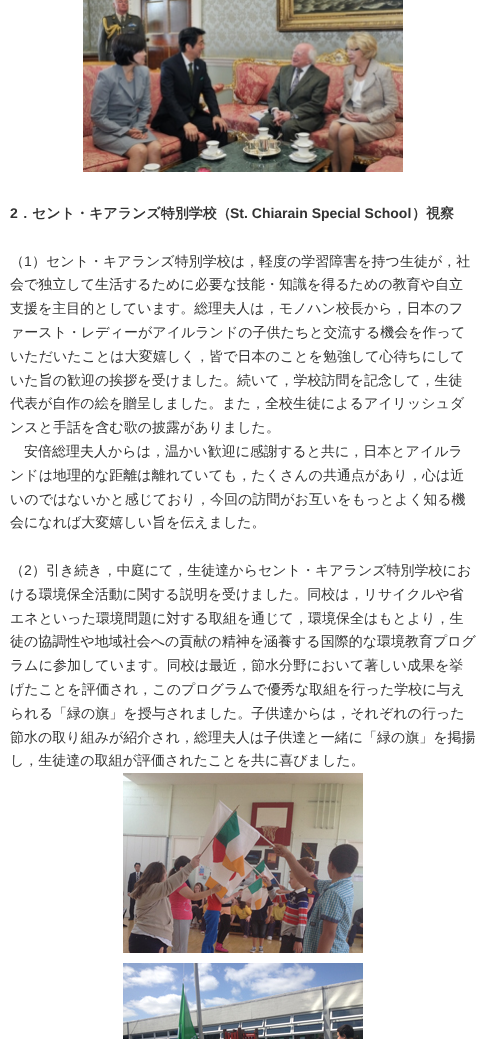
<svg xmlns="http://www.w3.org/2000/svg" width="486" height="1039">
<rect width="100%" height="100%" fill="#fff"/>
<image x="83" y="0" width="320" height="172" href="media/1.png"/>
<text x="10" y="218" style="font-family:Liberation Sans;font-size:14px;font-weight:bold;fill:#333">2</text>
<text x="18" y="218" style="font-family:WenQuanYi Zen Hei;font-size:14px;font-weight:bold;fill:#333">．セント・キアランズ特別学校（</text>
<text x="230" y="218" style="font-family:Liberation Sans;font-size:14px;font-weight:bold;fill:#333">St. Chiarain Special School</text>
<text x="412" y="218" style="font-family:WenQuanYi Zen Hei;font-size:14px;font-weight:bold;fill:#333">）視察</text>
<text x="10" y="266" style="font-family:WenQuanYi Zen Hei;font-size:14px;font-weight:500;fill:#333">（</text>
<text x="24" y="266" style="font-family:Liberation Sans;font-size:14px;fill:#333">1</text>
<text x="32" y="266" style="font-family:WenQuanYi Zen Hei;font-size:14px;font-weight:500;fill:#333">）セント・キアランズ特別学校は，軽度の学習障害を持つ生徒が，社</text>
<text x="10" y="289" style="font-family:WenQuanYi Zen Hei;font-size:14px;font-weight:500;fill:#333">会で独立して生活するために必要な技能・知識を得るための教育や自立</text>
<text x="10" y="313" style="font-family:WenQuanYi Zen Hei;font-size:14px;font-weight:500;fill:#333">支援を主目的としています。総理夫人は，モノハン校長から，日本のフ</text>
<text x="10" y="337" style="font-family:WenQuanYi Zen Hei;font-size:14px;font-weight:500;fill:#333">ァースト・レディーがアイルランドの子供たちと交流する機会を作って</text>
<text x="10" y="361" style="font-family:WenQuanYi Zen Hei;font-size:14px;font-weight:500;fill:#333">いただいたことは大変嬉しく，皆で日本のことを勉強して心待ちにして</text>
<text x="10" y="385" style="font-family:WenQuanYi Zen Hei;font-size:14px;font-weight:500;fill:#333">いた旨の歓迎の挨拶を受けました。続いて，学校訪問を記念して，生徒</text>
<text x="10" y="408" style="font-family:WenQuanYi Zen Hei;font-size:14px;font-weight:500;fill:#333">代表が自作の絵を贈呈しました。また，全校生徒によるアイリッシュダ</text>
<text x="10" y="432" style="font-family:WenQuanYi Zen Hei;font-size:14px;font-weight:500;fill:#333">ンスと手話を含む歌の披露がありました。</text>
<text x="24" y="456" style="font-family:WenQuanYi Zen Hei;font-size:14px;font-weight:500;fill:#333">安倍総理夫人からは，温かい歓迎に感謝すると共に，日本とアイルラ</text>
<text x="10" y="480" style="font-family:WenQuanYi Zen Hei;font-size:14px;font-weight:500;fill:#333">ンドは地理的な距離は離れていても，たくさんの共通点があり，心は近</text>
<text x="10" y="504" style="font-family:WenQuanYi Zen Hei;font-size:14px;font-weight:500;fill:#333">いのではないかと感じており，今回の訪問がお互いをもっとよく知る機</text>
<text x="10" y="527" style="font-family:WenQuanYi Zen Hei;font-size:14px;font-weight:500;fill:#333">会になれば大変嬉しい旨を伝えました。</text>
<text x="10" y="575" style="font-family:WenQuanYi Zen Hei;font-size:14px;font-weight:500;fill:#333">（</text>
<text x="24" y="575" style="font-family:Liberation Sans;font-size:14px;fill:#333">2</text>
<text x="32" y="575" style="font-family:WenQuanYi Zen Hei;font-size:14px;font-weight:500;fill:#333">）引き続き，中庭にて，生徒達からセント・キアランズ特別学校にお</text>
<text x="10" y="599" style="font-family:WenQuanYi Zen Hei;font-size:14px;font-weight:500;fill:#333">ける環境保全活動に関する説明を受けました。同校は，リサイクルや省</text>
<text x="10" y="623" style="font-family:WenQuanYi Zen Hei;font-size:14px;font-weight:500;fill:#333">エネといった環境問題に対する取組を通じて，環境保全はもとより，生</text>
<text x="10" y="646" style="font-family:WenQuanYi Zen Hei;font-size:14px;font-weight:500;fill:#333">徒の協調性や地域社会への貢献の精神を涵養する国際的な環境教育プログ</text>
<text x="10" y="670" style="font-family:WenQuanYi Zen Hei;font-size:14px;font-weight:500;fill:#333">ラムに参加しています。同校は最近，節水分野において著しい成果を挙</text>
<text x="10" y="694" style="font-family:WenQuanYi Zen Hei;font-size:14px;font-weight:500;fill:#333">げたことを評価され，このプログラムで優秀な取組を行った学校に与え</text>
<text x="10" y="718" style="font-family:WenQuanYi Zen Hei;font-size:14px;font-weight:500;fill:#333">られる「緑の旗」を授与されました。子供達からは，それぞれの行った</text>
<text x="10" y="742" style="font-family:WenQuanYi Zen Hei;font-size:14px;font-weight:500;fill:#333">節水の取り組みが紹介され，総理夫人は子供達と一緒に「緑の旗」を掲揚</text>
<text x="10" y="765" style="font-family:WenQuanYi Zen Hei;font-size:14px;font-weight:500;fill:#333">し，生徒達の取組が評価されたことを共に喜びました。</text>
<image x="123" y="773" width="240" height="180" href="media/2.png"/>
<image x="123" y="963" width="240" height="76" href="media/3.png"/>
</svg>
